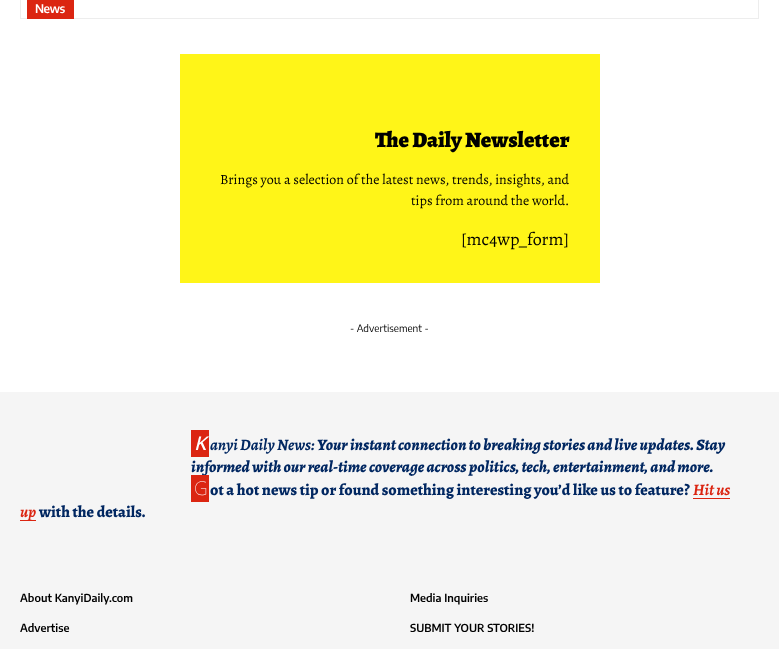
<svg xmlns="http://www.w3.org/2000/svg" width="779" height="649">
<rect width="100%" height="100%" fill="#fff"/>
<rect x="20.5" y="-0.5" width="738" height="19" fill="none" stroke="#ededed"/>
<rect x="27" width="47" height="19" fill="#db2511"/>
<text x="35" y="13" style="font-family:Encode Sans Condensed;font-size:12px;font-weight:600;letter-spacing:-0.5px;fill:#fff">News</text>
<rect x="180" y="54" width="420" height="229" fill="#fff518"/>
<text x="375" y="147" style="font-family:Alegreya;font-size:22px;font-weight:900;fill:#000">The Daily Newsletter</text>
<text x="220" y="184" style="font-family:Alegreya;font-size:14px;fill:#000">Brings you a selection of the latest news, trends, insights, and</text>
<text x="411" y="205" style="font-family:Alegreya;font-size:14px;fill:#000">tips from around the world.</text>
<text x="461" y="245" style="font-family:Alegreya;font-size:18px;fill:#000">[mc4wp_form]</text>
<text x="350" y="332" style="font-family:Encode Sans Condensed;font-size:10px;fill:#000">- Advertisement -</text>
<rect y="392" width="779" height="257" fill="#f5f5f5"/>
<rect x="191" y="430" width="18" height="27" fill="#db2511"/>
<text x="194" y="450" style="font-family:Noto Sans;font-size:19px;font-weight:500;font-style:italic;fill:#fff">K</text>
<text x="210" y="450" style="font-family:Alegreya;font-size:16px;font-weight:bold;font-style:italic;fill:#012761">anyi Daily News:</text>
<text x="317" y="450" style="font-family:Alegreya;font-size:16px;font-weight:800;font-style:italic;fill:#012761">Your instant connection to breaking stories and live updates. Stay</text>
<text x="191" y="472" style="font-family:Alegreya;font-size:16px;font-weight:800;font-style:italic;fill:#012761">informed with our real-time coverage across politics, tech, entertainment, and more.</text>
<rect x="191" y="475" width="18" height="27" fill="#db2511"/>
<text x="194" y="495" style="font-family:Noto Sans;font-size:19px;font-weight:100;fill:#fff">G</text>
<text x="210" y="495" style="font-family:Alegreya;font-size:16px;font-weight:800;fill:#012761">ot a hot news tip or found something interesting you’d like us to feature?</text>
<text x="693" y="495" style="font-family:Alegreya;font-size:16px;font-weight:bold;font-style:italic;fill:#db2511">Hit us</text>
<rect x="693" y="498" width="37" height="1" fill="#db2511"/>
<rect x="20" y="520" width="16" height="1" fill="#db2511"/>
<text x="20" y="517" style="font-family:Alegreya;font-size:16px;font-weight:bold;font-style:italic;fill:#db2511">up</text>
<text x="39" y="517" style="font-family:Alegreya;font-size:16px;font-weight:800;fill:#012761">with the details.</text>
<text x="20" y="602" style="font-family:Encode Sans Condensed;font-size:11px;font-weight:600;fill:#000">About KanyiDaily.com</text>
<text x="20" y="632" style="font-family:Encode Sans Condensed;font-size:11px;font-weight:600;fill:#000">Advertise</text>
<text x="410" y="602" style="font-family:Encode Sans Condensed;font-size:11px;font-weight:600;fill:#000">Media Inquiries</text>
<text x="410" y="632" style="font-family:Encode Sans Condensed;font-size:11px;font-weight:600;fill:#000">SUBMIT YOUR STORIES!</text>
</svg>
